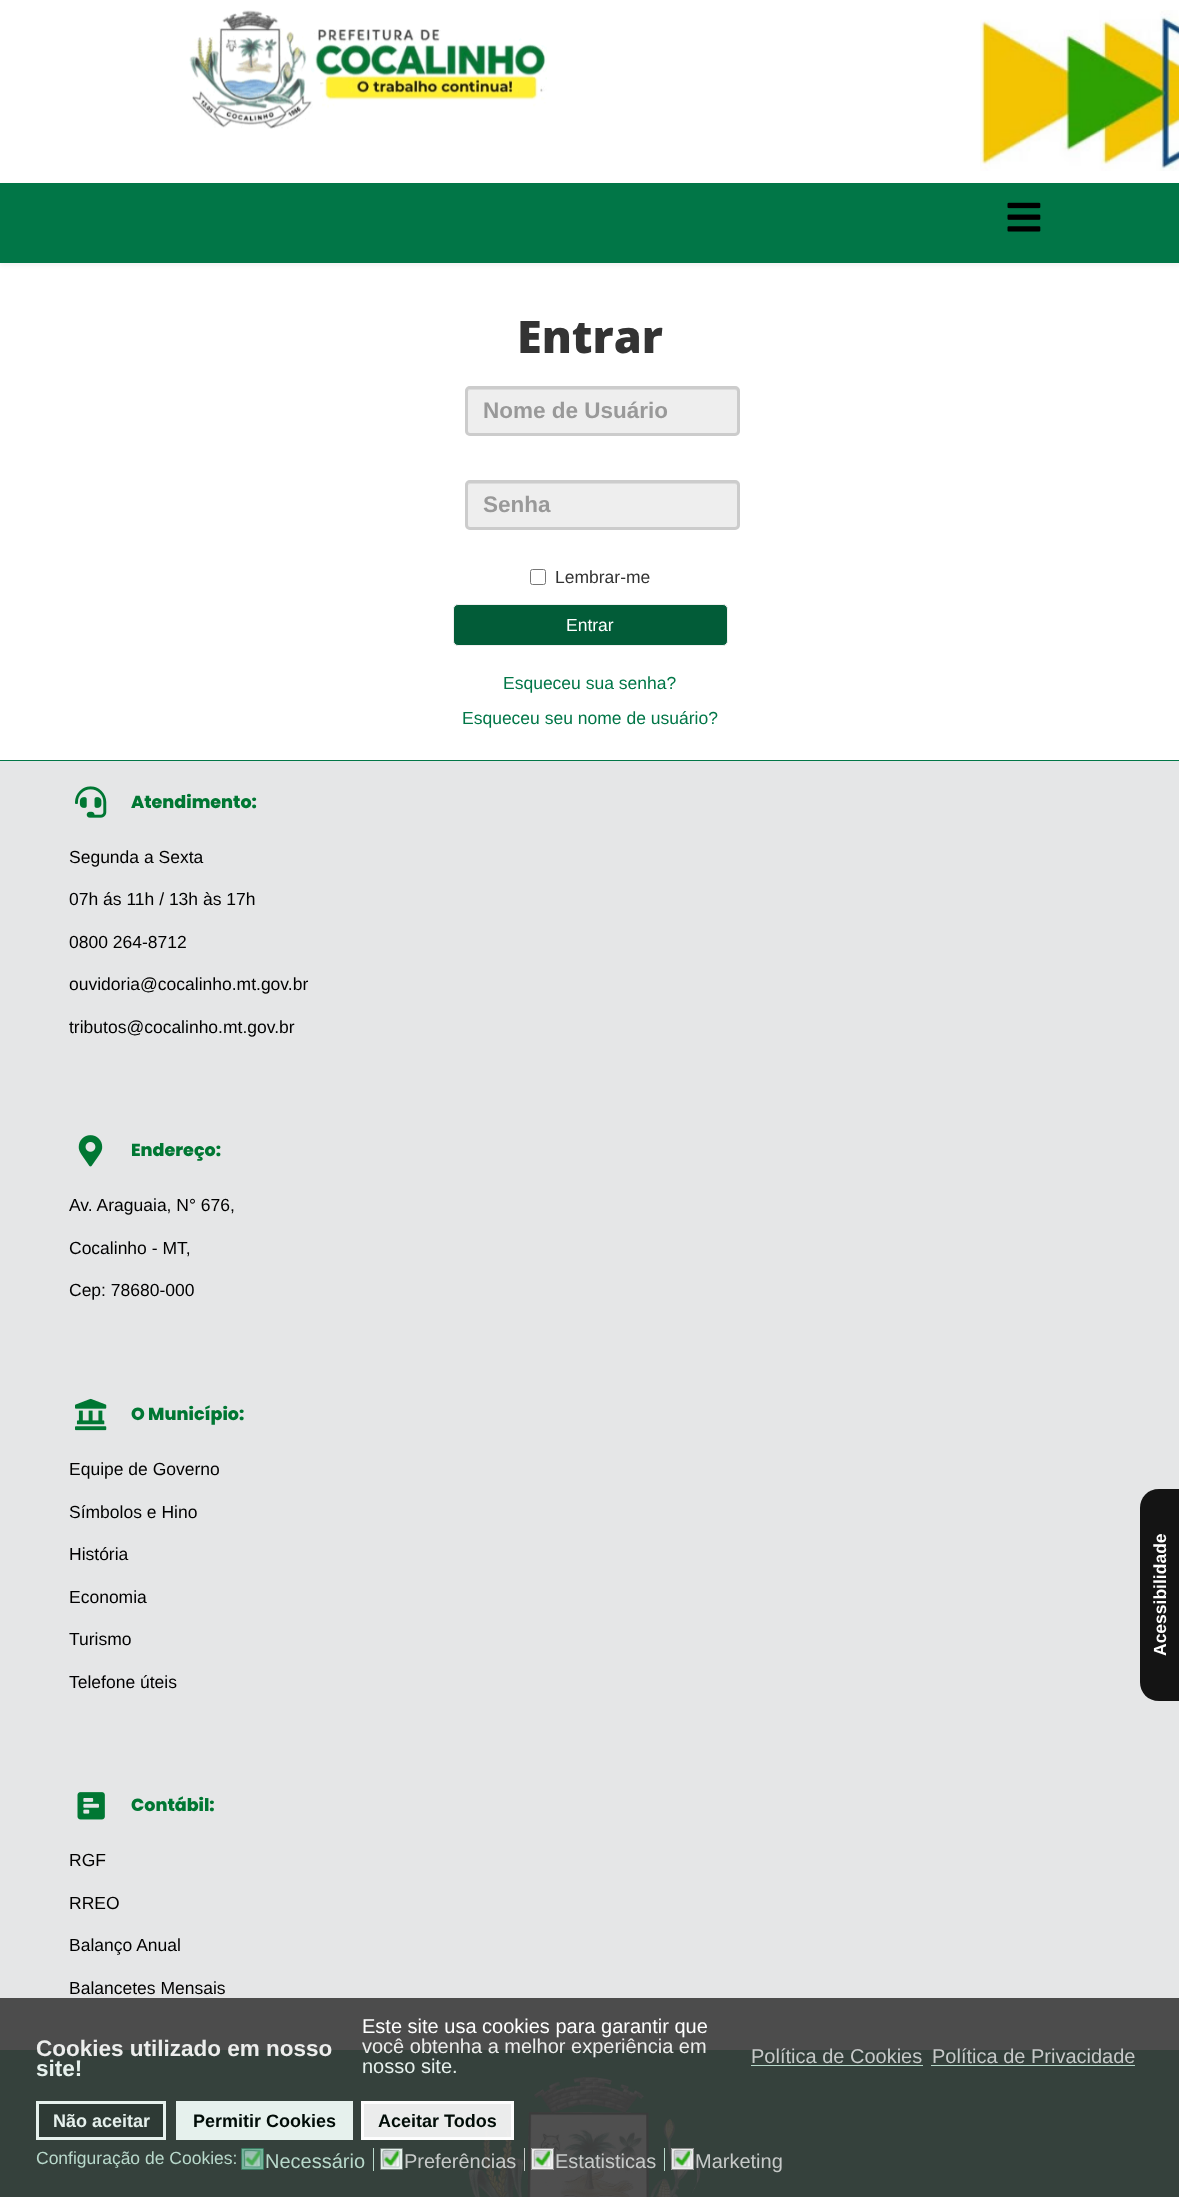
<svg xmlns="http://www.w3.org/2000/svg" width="1179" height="2197">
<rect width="100%" height="100%" fill="#fff"/>
<image x="980" y="10" width="199" height="161" href="media/1.png"/>
<image x="189" y="10" width="358" height="119" href="media/2.png"/>
<rect y="186" width="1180" height="80" fill="#0000000d" filter="blur(2px)"/>
<rect y="183" width="1179" height="80" fill="#017647"/>
<image x="1007" y="202" width="34" height="30" href="media/3.png"/>
<text x="517" y="353" style="font-family:Open Sans;font-size:45px;font-weight:800;fill:#333">Entrar</text>
<rect x="465" y="386" width="275" height="50" rx="5" fill="#eee"/>
<path d="M470 390h265c1 0 3 1 3 2c0-2-1-3-2-3h-266c-1 0-2 1-2 3c0-1 1-2 2-2z" fill="#dcdcdc"/>
<rect x="466.5" y="387.5" width="272" height="47" rx="3.5" fill="none" stroke="#ccc" stroke-width="3"/>
<text x="483" y="418" style="font-family:Liberation Sans;font-size:22.5px;font-weight:bold;fill:#999">Nome de Usuário</text>
<rect x="465" y="480" width="275" height="50" rx="5" fill="#eee"/>
<path d="M470 484h265c1 0 3 1 3 2c0-2-1-3-2-3h-266c-1 0-2 1-2 3c0-1 1-2 2-2z" fill="#dcdcdc"/>
<rect x="466.5" y="481.5" width="272" height="47" rx="3.5" fill="none" stroke="#ccc" stroke-width="3"/>
<text x="483" y="512" style="font-family:Liberation Sans;font-size:22.5px;font-weight:bold;fill:#999">Senha</text>
<rect x="530.5" y="569.5" width="15" height="15" rx="2" fill="none" stroke="#767676"/>
<text x="555" y="583" style="font-family:Liberation Sans;font-size:17.5px;fill:#333">Lembrar-me</text>
<rect x="453.5" y="604.5" width="274" height="41" rx="4.5" fill="#025c38" stroke="#f0f0f0"/>
<text x="566" y="631" style="font-family:Liberation Sans;font-size:17.5px;fill:#fff">Entrar</text>
<text x="503" y="689" style="font-family:Liberation Sans;font-size:17.5px;fill:#017647">Esqueceu sua senha?</text>
<text x="462" y="724" style="font-family:Liberation Sans;font-size:17.5px;fill:#017647">Esqueceu seu nome de usuário?</text>
<rect y="760" width="1179" height="1" fill="#017647"/>
<rect y="2050" width="1179" height="147" fill="#35413c"/>
<rect y="761" width="1179" height="1237" fill="#e5e6e7"/>
<rect y="1998" width="1179" height="52" fill="#4c4c4c"/>
<image x="75" y="786" width="32" height="32" href="media/4.png"/>
<text x="131" y="808" style="font-family:Poppins;font-size:17.5px;font-weight:800;fill:#073">Atendimento:</text>
<text x="69" y="863" style="font-family:Liberation Sans;font-size:17.5px;fill:#000">Segunda a Sexta</text>
<text x="69" y="905" style="font-family:Liberation Sans;font-size:17.5px;fill:#000">07h ás 11h / 13h às 17h</text>
<text x="69" y="948" style="font-family:Liberation Sans;font-size:17.5px;fill:#000">0800 264-8712</text>
<text x="69" y="990" style="font-family:Liberation Sans;font-size:17.5px;fill:#000">ouvidoria@cocalinho.mt.gov.br</text>
<text x="69" y="1033" style="font-family:Liberation Sans;font-size:17.5px;fill:#000">tributos@cocalinho.mt.gov.br</text>
<image x="78" y="1135" width="25" height="32" href="media/5.png"/>
<text x="131" y="1156" style="font-family:Poppins;font-size:17.5px;font-weight:800;fill:#073">Endereço:</text>
<text x="69" y="1211" style="font-family:Liberation Sans;font-size:17.5px;fill:#000">Av. Araguaia, N° 676,</text>
<text x="69" y="1254" style="font-family:Liberation Sans;font-size:17.5px;fill:#000">Cocalinho - MT,</text>
<text x="69" y="1296" style="font-family:Liberation Sans;font-size:17.5px;fill:#000">Cep: 78680-000</text>
<image x="75" y="1398" width="32" height="33" href="media/6.png"/>
<text x="131" y="1420" style="font-family:Poppins;font-size:17.5px;font-weight:800;fill:#073">O Município:</text>
<text x="69" y="1475" style="font-family:Liberation Sans;font-size:17.5px;fill:#000">Equipe de Governo</text>
<text x="69" y="1518" style="font-family:Liberation Sans;font-size:17.5px;fill:#000">Símbolos e Hino</text>
<text x="69" y="1560" style="font-family:Liberation Sans;font-size:17.5px;fill:#000">História</text>
<text x="69" y="1603" style="font-family:Liberation Sans;font-size:17.5px;fill:#000">Economia</text>
<text x="69" y="1645" style="font-family:Liberation Sans;font-size:17.5px;fill:#000">Turismo</text>
<text x="69" y="1688" style="font-family:Liberation Sans;font-size:17.5px;fill:#000">Telefone úteis</text>
<image x="77" y="1792" width="28" height="28" href="media/7.png"/>
<text x="131" y="1811" style="font-family:Poppins;font-size:17.5px;font-weight:800;fill:#073">Contábil:</text>
<text x="69" y="1866" style="font-family:Liberation Sans;font-size:17.5px;fill:#000">RGF</text>
<text x="69" y="1909" style="font-family:Liberation Sans;font-size:17.5px;fill:#000">RREO</text>
<text x="69" y="1951" style="font-family:Liberation Sans;font-size:17.5px;fill:#000">Balanço Anual</text>
<text x="69" y="1994" style="font-family:Liberation Sans;font-size:17.5px;fill:#000">Balancetes Mensais</text>
<image x="468" y="2076" width="233" height="121" href="media/8.png"/>
<path d="M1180 1701h-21c-11 0-19-8-19-19v-174c0-11 8-19 19-19h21z" fill="#141414"/>
<text x="1166" y="1656" transform="rotate(-90 1166 1656)" style="font-family:Liberation Sans;font-size:17.5px;font-weight:bold;fill:#fff">Acessibilidade</text>
<text x="36" y="2056" style="font-family:Liberation Sans;font-size:22.5px;font-weight:bold;fill:#ecedec">Cookies utilizado em nosso</text>
<text x="36" y="2076" style="font-family:Liberation Sans;font-size:22.5px;font-weight:bold;fill:#e6f1ed">site!</text>
<text x="362" y="2033" style="font-family:Liberation Sans;font-size:20px;fill:#fff">Este site usa cookies para garantir que</text>
<text x="362" y="2053" style="font-family:Liberation Sans;font-size:20px;fill:#ecedec">você obtenha a melhor experiência em</text>
<text x="362" y="2073" style="font-family:Liberation Sans;font-size:20px;fill:#e6f1ed">nosso site.</text>
<text x="751" y="2063" style="font-family:Liberation Sans;font-size:20px;fill:#c7cac9">Política de Cookies</text>
<rect x="751" y="2065" width="172" height="1" fill="#b8d9cb"/>
<text x="932" y="2063" style="font-family:Liberation Sans;font-size:20px;fill:#c7cac9">Política de Privacidade</text>
<rect x="931" y="2065" width="204" height="1" fill="#b8d9cb"/>
<rect x="37.5" y="2102.5" width="127" height="36" fill="#2e3a35" stroke="#e6f1ed" stroke-width="3"/>
<text x="53" y="2127" style="font-family:Liberation Sans;font-size:18px;font-weight:bold;fill:#e6f1ed">Não aceitar</text>
<rect x="176" y="2101" width="177" height="39" fill="#e6f1ed"/>
<text x="193" y="2127" style="font-family:Liberation Sans;font-size:18px;font-weight:bold;fill:#000c07">Permitir Cookies</text>
<rect x="362.5" y="2102.5" width="150" height="36" fill="#ffffffe6" stroke="#fdfdfd" stroke-width="3"/>
<text x="378" y="2127" style="font-family:Liberation Sans;font-size:18px;font-weight:bold;fill:#000c07">Aceitar Todos</text>
<text x="36" y="2164" style="font-family:Liberation Sans;font-size:17.5px;fill:#b8d9cb">Configuração de Cookies:</text>
<rect x="241.5" y="2148.5" width="22" height="21" rx="0.5" fill="#73b49a" stroke="#3a7b61"/>
<image x="243" y="2150" width="19" height="18" href="media/9.png"/>
<path d="M260.5 2151v8c0 10 2.5 8-8 8l-8-.5" fill="none" stroke="#64a48b" stroke-width="1.2"/>
<path d="M244.5 2166.5v-7.5c0-10.5-2.5-8.5 8-8.5l8 .5" fill="none" stroke="#519178" stroke-width="1.2"/>
<rect x="373" y="2148" width="1" height="23" fill="#b8d9cb"/>
<text x="265" y="2168" style="font-family:Liberation Sans;font-size:20px;fill:#b8d9cb">Necessário</text>
<rect x="380.5" y="2148.5" width="22" height="21" rx="0.5" fill="#e6f1ed" stroke="#737f7a"/>
<image x="382" y="2150" width="19" height="18" href="media/10.png"/>
<path d="M399 2151l.5 8c0 10 2 8-8.5 8l-7.5-.5" fill="none" stroke="#c6d3cf" stroke-width="1.2"/>
<path d="M383.5 2166.5l-.5-7.5c0-10.5-2-8.5 8-8.5l8 .5" fill="none" stroke="#a1ada8" stroke-width="1.2"/>
<rect x="524" y="2148" width="1" height="23" fill="#c7cac8"/>
<text x="404" y="2168" style="font-family:Liberation Sans;font-size:20px;fill:#c7cac9">Preferências</text>
<rect x="531" y="2148" width="23" height="22" rx="1" fill="#ffffffe6"/>
<rect x="531.5" y="2148.5" width="22" height="21" rx="0.5" fill="none" stroke="#808080e6"/>
<image x="533" y="2150" width="19" height="18" href="media/11.png"/>
<path d="M550.5 2151v8c0 10 2.5 8-8 8l-8-.5" fill="none" stroke="#dcdddee6" stroke-width="1.2"/>
<path d="M534.5 2166.5v-7.5c0-10.5-2.5-8.5 8-8.5l8 .5" fill="none" stroke="#b3b3b3e6" stroke-width="1.2"/>
<rect x="664" y="2148" width="1" height="23" fill="#b8d9cb"/>
<text x="555" y="2168" style="font-family:Liberation Sans;font-size:20px;fill:#c7cac9">Estatisticas</text>
<rect x="671" y="2148" width="23" height="22" rx="1" fill="#ffffffe6"/>
<rect x="671.5" y="2148.5" width="22" height="21" rx="0.5" fill="none" stroke="#808080e6"/>
<image x="673" y="2150" width="19" height="18" href="media/12.png"/>
<path d="M690.5 2151v8c0 10 2.5 8-8 8l-8-.5" fill="none" stroke="#dcdddee6" stroke-width="1.2"/>
<path d="M674.5 2166.5v-7.5c0-10.5-2.5-8.5 8-8.5l8 .5" fill="none" stroke="#b3b3b3e6" stroke-width="1.2"/>
<text x="695" y="2168" style="font-family:Liberation Sans;font-size:20px;fill:#c7cac9">Marketing</text>
</svg>
